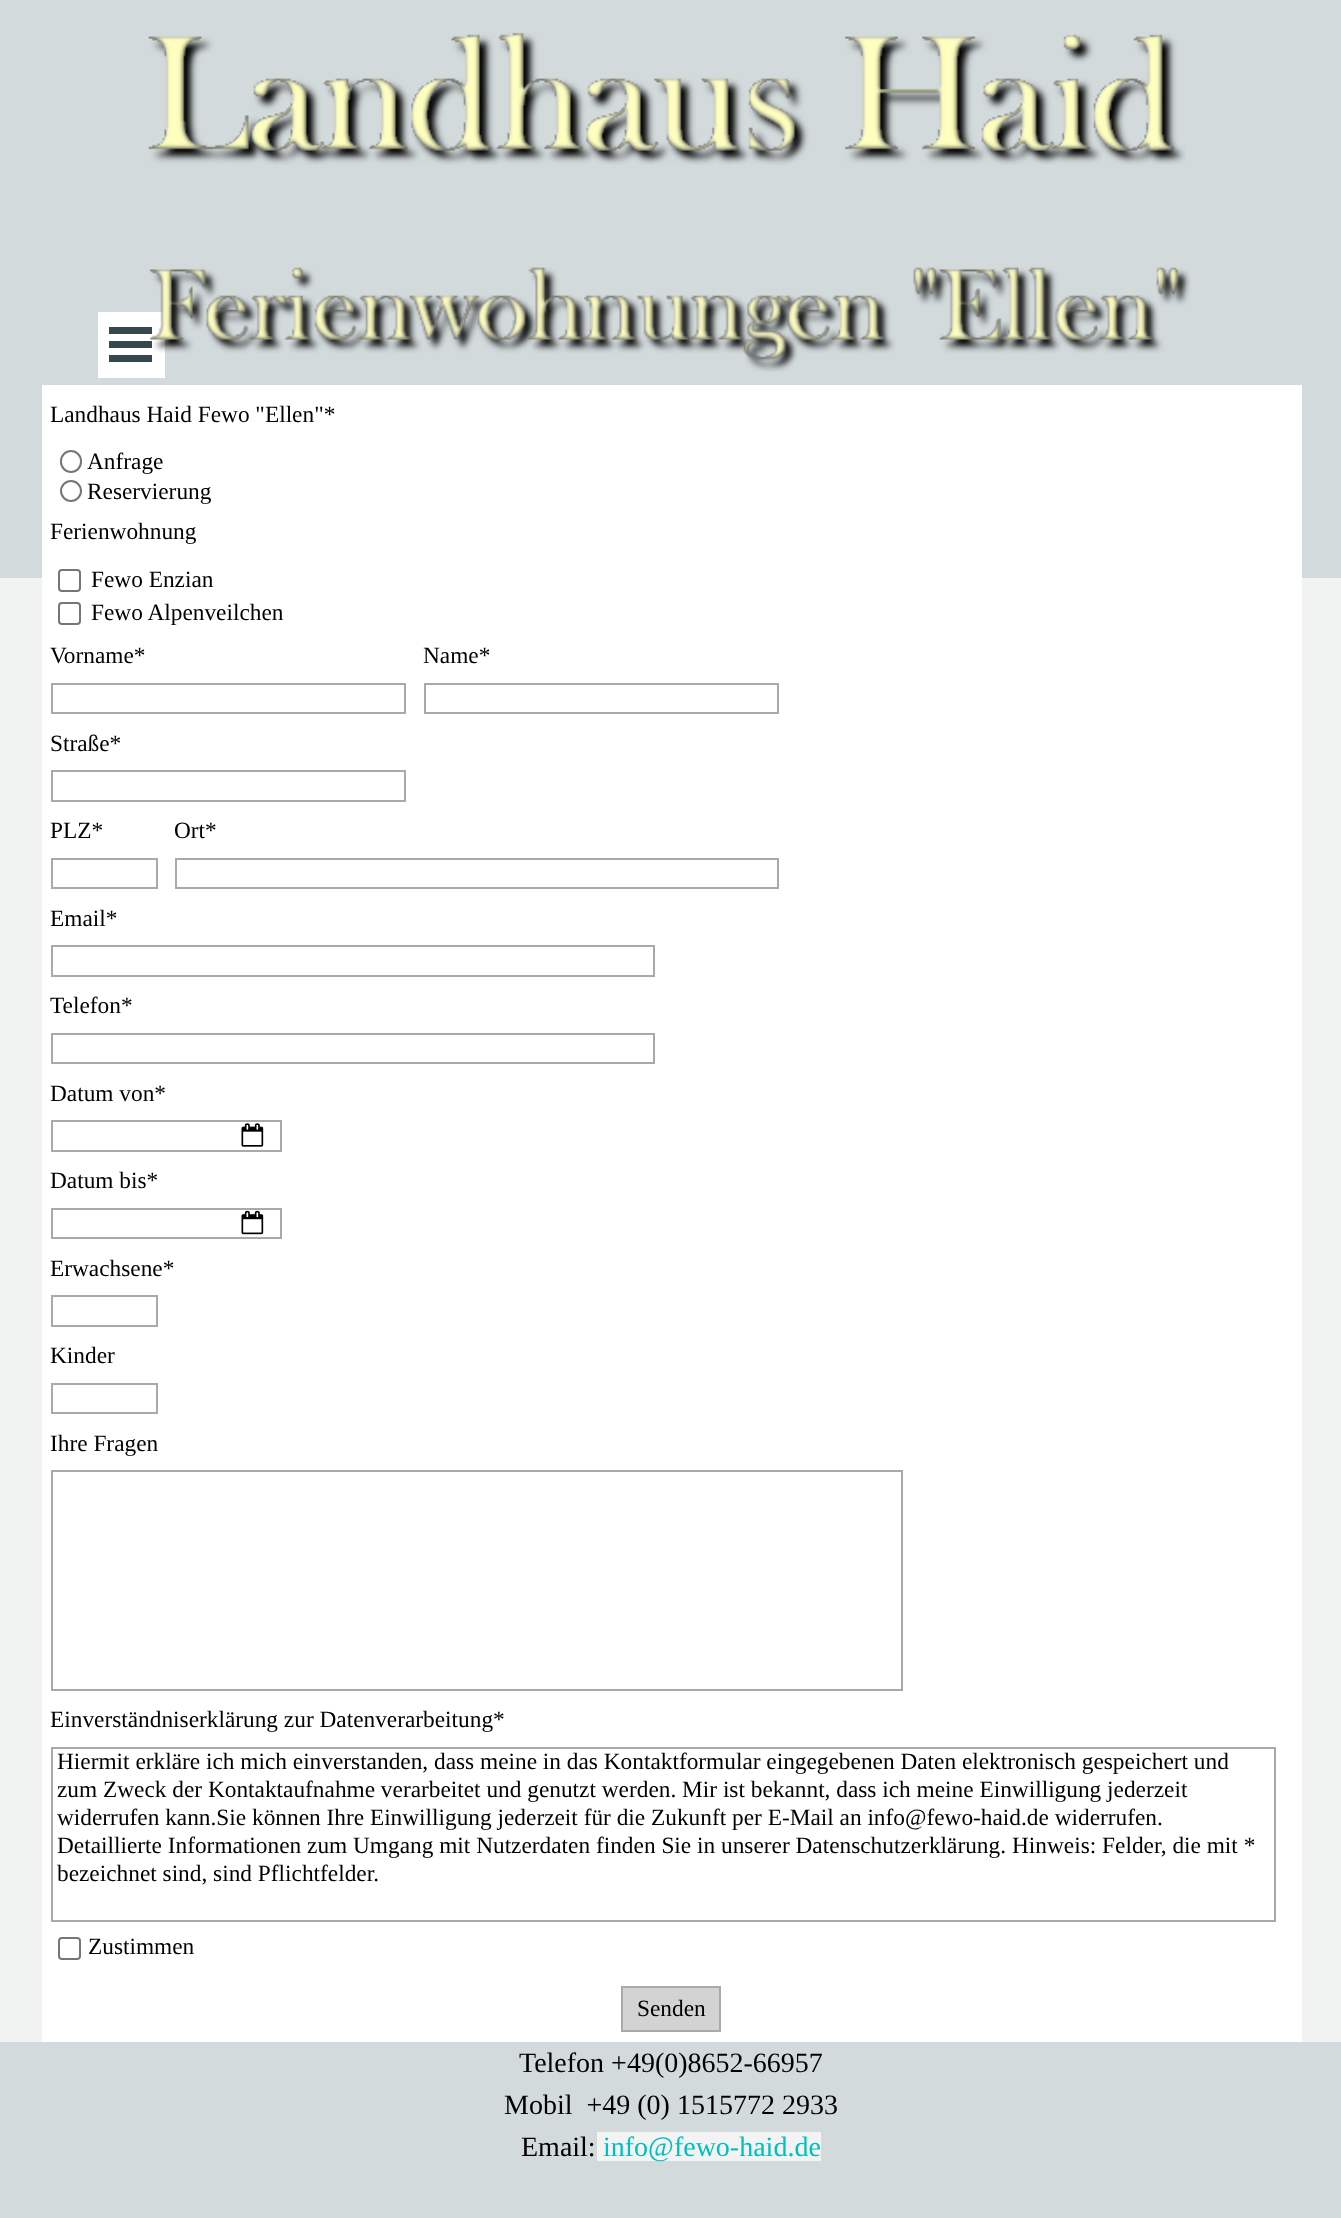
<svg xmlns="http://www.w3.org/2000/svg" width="1341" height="2218">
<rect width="100%" height="100%" fill="#f1f3f3"/>
<rect width="1341" height="578" fill="#d3dadc"/>
<image x="148" y="32" width="1038" height="133" href="media/1.png"/>
<rect x="98" y="312" width="67" height="66" fill="#fff"/>
<rect x="109" y="327" width="43" height="7" fill="#36474f"/>
<rect x="109" y="341" width="43" height="7" fill="#36474f"/>
<rect x="109" y="355" width="43" height="7" fill="#36474f"/>
<image x="149" y="267" width="1042" height="105" href="media/2.png"/>
<rect x="42" y="385" width="1260" height="1657" fill="#fff"/>
<text x="50" y="422" style="font-family:Liberation Serif;font-size:23.33px;fill:#000">Landhaus Haid Fewo "Ellen"*</text>
<rect x="61" y="451" width="20" height="21" rx="10" fill="none" stroke="#767676" stroke-width="2"/>
<text x="87" y="469" style="font-family:Liberation Serif;font-size:23.33px;fill:#000">Anfrage</text>
<circle cx="71" cy="491" r="10" fill="none" stroke="#767676" stroke-width="2"/>
<text x="87" y="499" style="font-family:Liberation Serif;font-size:23.33px;fill:#000">Reservierung</text>
<text x="50" y="539" style="font-family:Liberation Serif;font-size:23.33px;fill:#000">Ferienwohnung</text>
<rect x="59" y="570" width="21" height="21" rx="3" fill="none" stroke="#767676" stroke-width="2"/>
<text x="91" y="587" style="font-family:Liberation Serif;font-size:23.33px;fill:#000">Fewo Enzian</text>
<rect x="59" y="603" width="21" height="21" rx="3" fill="none" stroke="#767676" stroke-width="2"/>
<text x="91" y="620" style="font-family:Liberation Serif;font-size:23.33px;fill:#000">Fewo Alpenveilchen</text>
<text x="50" y="663" style="font-family:Liberation Serif;font-size:23.33px;fill:#000">Vorname*</text>
<rect x="52" y="684" width="353" height="29" fill="none" stroke="#a9a9a9" stroke-width="2"/>
<text x="423" y="663" style="font-family:Liberation Serif;font-size:23.33px;fill:#000">Name*</text>
<rect x="425" y="684" width="353" height="29" fill="none" stroke="#a9a9a9" stroke-width="2"/>
<text x="50" y="751" style="font-family:Liberation Serif;font-size:23.33px;fill:#000">Straße*</text>
<rect x="52" y="771" width="353" height="30" fill="none" stroke="#a9a9a9" stroke-width="2"/>
<text x="50" y="838" style="font-family:Liberation Serif;font-size:23.33px;fill:#000">PLZ*</text>
<rect x="52" y="859" width="105" height="29" fill="none" stroke="#a9a9a9" stroke-width="2"/>
<text x="174" y="838" style="font-family:Liberation Serif;font-size:23.33px;fill:#000">Ort*</text>
<rect x="176" y="859" width="602" height="29" fill="none" stroke="#a9a9a9" stroke-width="2"/>
<text x="50" y="926" style="font-family:Liberation Serif;font-size:23.33px;fill:#000">Email*</text>
<rect x="52" y="946" width="602" height="30" fill="none" stroke="#a9a9a9" stroke-width="2"/>
<text x="50" y="1013" style="font-family:Liberation Serif;font-size:23.33px;fill:#000">Telefon*</text>
<rect x="52" y="1034" width="602" height="29" fill="none" stroke="#a9a9a9" stroke-width="2"/>
<text x="50" y="1101" style="font-family:Liberation Serif;font-size:23.33px;fill:#000">Datum von*</text>
<rect x="52" y="1121" width="229" height="30" fill="none" stroke="#a9a9a9" stroke-width="2"/>
<image x="241" y="1123" width="23" height="24" href="media/3.png"/>
<text x="50" y="1188" style="font-family:Liberation Serif;font-size:23.33px;fill:#000">Datum bis*</text>
<rect x="52" y="1209" width="229" height="29" fill="none" stroke="#a9a9a9" stroke-width="2"/>
<image x="241" y="1210" width="23" height="25" href="media/4.png"/>
<text x="50" y="1276" style="font-family:Liberation Serif;font-size:23.33px;fill:#000">Erwachsene*</text>
<rect x="52" y="1296" width="105" height="30" fill="none" stroke="#a9a9a9" stroke-width="2"/>
<text x="50" y="1363" style="font-family:Liberation Serif;font-size:23.33px;fill:#000">Kinder</text>
<rect x="52" y="1384" width="105" height="29" fill="none" stroke="#a9a9a9" stroke-width="2"/>
<text x="50" y="1451" style="font-family:Liberation Serif;font-size:23.33px;fill:#000">Ihre Fragen</text>
<rect x="52" y="1471" width="850" height="219" fill="none" stroke="#a9a9a9" stroke-width="2"/>
<text x="50" y="1727" style="font-family:Liberation Serif;font-size:23.33px;fill:#000">Einverständniserklärung zur Datenverarbeitung*</text>
<rect x="52" y="1748" width="1223" height="173" fill="none" stroke="#a9a9a9" stroke-width="2"/>
<text x="57" y="1769" style="font-family:Liberation Serif;font-size:23.33px;fill:#000">Hiermit erkläre ich mich einverstanden, dass meine in das Kontaktformular eingegebenen Daten elektronisch gespeichert und</text>
<text x="57" y="1797" style="font-family:Liberation Serif;font-size:23.33px;fill:#000">zum Zweck der Kontaktaufnahme verarbeitet und genutzt werden. Mir ist bekannt, dass ich meine Einwilligung jederzeit</text>
<text x="57" y="1825" style="font-family:Liberation Serif;font-size:23.33px;fill:#000">widerrufen kann.Sie können Ihre Einwilligung jederzeit für die Zukunft per E-Mail an info@fewo-haid.de widerrufen.</text>
<text x="57" y="1853" style="font-family:Liberation Serif;font-size:23.33px;fill:#000">Detaillierte Informationen zum Umgang mit Nutzerdaten finden Sie in unserer Datenschutzerklärung.</text>
<text x="1012" y="1853" style="font-family:Liberation Serif;font-size:23.33px;fill:#000">Hinweis: Felder, die mit *</text>
<text x="57" y="1881" style="font-family:Liberation Serif;font-size:23.33px;fill:#000">bezeichnet sind, sind Pflichtfelder.</text>
<rect x="59" y="1938" width="21" height="21" rx="3" fill="none" stroke="#767676" stroke-width="2"/>
<text x="88" y="1954" style="font-family:Liberation Serif;font-size:23.33px;fill:#000">Zustimmen</text>
<rect x="622" y="1987" width="98" height="44" fill="#d3d3d3" stroke="#a9a9a9" stroke-width="2"/>
<text x="637" y="2016" style="font-family:Liberation Serif;font-size:23.33px;fill:#000">Senden</text>
<rect y="2042" width="1341" height="176" fill="#d3dadc"/>
<text x="519" y="2072" style="font-family:Liberation Serif;font-size:28px;fill:#000">Telefon +49(0)8652-66957</text>
<text x="504" y="2114" style="font-family:Liberation Serif;font-size:28px;fill:#000" xml:space="preserve">Mobil  +49 (0) 1515772 2933</text>
<text x="521" y="2156" style="font-family:Liberation Serif;font-size:28px;fill:#000">Email:</text>
<rect x="597" y="2132" width="224" height="29" fill="#f3f3f3"/>
<text x="603" y="2156" style="font-family:Liberation Serif;font-size:28px;fill:#00bfbf">info@fewo-haid.de</text>
</svg>
